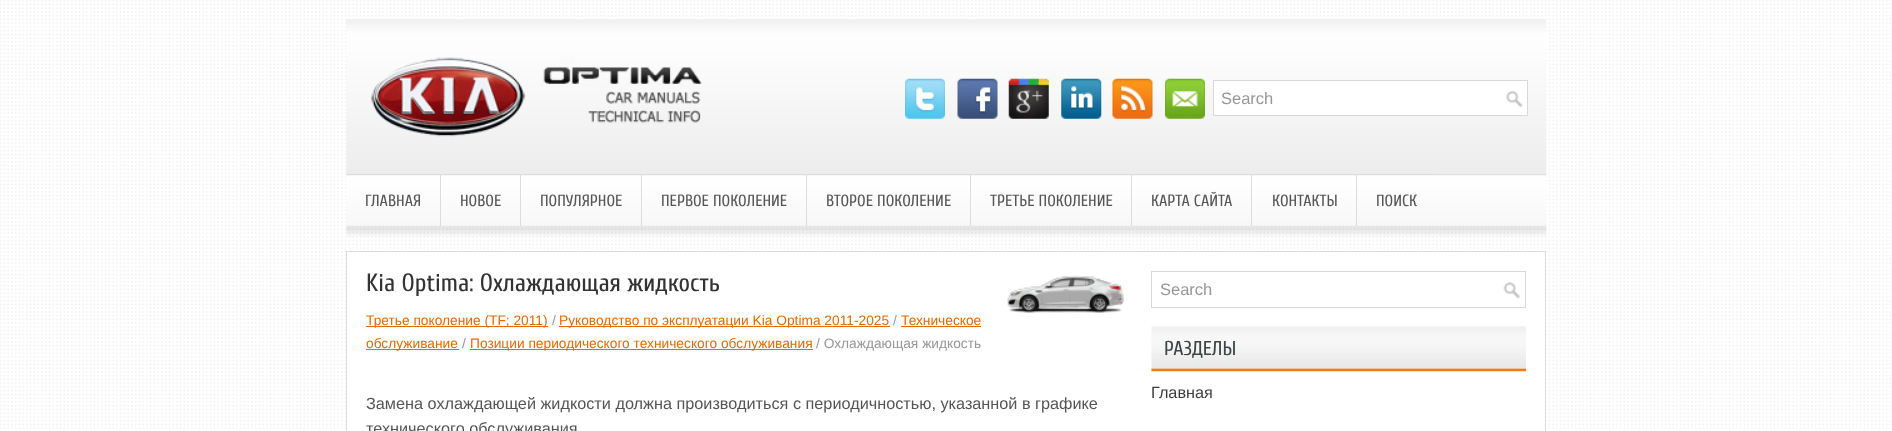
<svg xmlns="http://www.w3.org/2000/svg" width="1892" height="431">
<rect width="100%" height="100%" fill="#fff"/>
<image x="0" y="0" width="1892" height="429" href="media/1.png"/>
<image x="346" y="19" width="1201" height="156" href="media/2.png"/>
<image x="371" y="57" width="331" height="80" href="media/3.png"/>
<image x="905" y="78" width="40" height="41" href="media/4.png"/>
<image x="957" y="78" width="41" height="41" href="media/5.png"/>
<image x="1008" y="78" width="41" height="41" href="media/6.png"/>
<image x="1061" y="78" width="41" height="41" href="media/7.png"/>
<image x="1112" y="78" width="41" height="41" href="media/8.png"/>
<image x="1165" y="78" width="40" height="41" href="media/9.png"/>
<rect x="1214" y="81" width="313" height="34" fill="#fff"/>
<image x="1506" y="91" width="17" height="17" href="media/10.png"/>
<rect x="1213.5" y="80.5" width="314" height="35" fill="none" stroke="#d8d8d8"/>
<text x="1221" y="104" style="font-family:Liberation Sans;font-size:16.5px;fill:#979797">Search</text>
<image x="346" y="174" width="1201" height="63" href="media/11.png"/>
<rect x="346" y="174" width="94" height="1" fill="#dcdcdc"/>
<text x="365" y="206" style="font-family:Cuprum;font-size:16.25px;fill:#555">ГЛАВНАЯ</text>
<rect x="440" y="174" width="1" height="52" fill="#dcdcdc"/>
<rect x="441" y="174" width="79" height="1" fill="#dcdcdc"/>
<text x="460" y="206" style="font-family:Cuprum;font-size:16.25px;fill:#555">НОВОЕ</text>
<rect x="520" y="174" width="1" height="52" fill="#dcdcdc"/>
<rect x="521" y="174" width="120" height="1" fill="#dcdcdc"/>
<text x="540" y="206" style="font-family:Cuprum;font-size:16.25px;fill:#555">ПОПУЛЯРНОЕ</text>
<rect x="641" y="174" width="1" height="52" fill="#dcdcdc"/>
<rect x="643" y="174" width="163" height="1" fill="#dcdcdc"/>
<text x="661" y="206" style="font-family:Cuprum;font-size:16.25px;fill:#555">ПЕРВОЕ ПОКОЛЕНИЕ</text>
<rect x="806" y="174" width="1" height="52" fill="#dcdcdc"/>
<rect x="808" y="174" width="162" height="1" fill="#dcdcdc"/>
<text x="826" y="206" style="font-family:Cuprum;font-size:16.25px;fill:#555">ВТОРОЕ ПОКОЛЕНИЕ</text>
<rect x="970" y="174" width="1" height="52" fill="#dcdcdc"/>
<rect x="971" y="174" width="160" height="1" fill="#dcdcdc"/>
<text x="990" y="206" style="font-family:Cuprum;font-size:16.25px;fill:#555">ТРЕТЬЕ ПОКОЛЕНИЕ</text>
<rect x="1131" y="174" width="1" height="52" fill="#dcdcdc"/>
<rect x="1133" y="174" width="118" height="1" fill="#dcdcdc"/>
<text x="1151" y="206" style="font-family:Cuprum;font-size:16.25px;fill:#555">КАРТА САЙТА</text>
<rect x="1251" y="174" width="1" height="52" fill="#dcdcdc"/>
<rect x="1253" y="174" width="103" height="1" fill="#dcdcdc"/>
<text x="1272" y="206" style="font-family:Cuprum;font-size:16.25px;fill:#555">КОНТАКТЫ</text>
<rect x="1356" y="174" width="1" height="52" fill="#dcdcdc"/>
<rect x="1358" y="174" width="78" height="1" fill="#dcdcdc"/>
<text x="1376" y="206" style="font-family:Cuprum;font-size:16.25px;fill:#555">ПОИСК</text>
<rect x="348" y="252" width="1195" height="177" fill="#fff"/>
<rect x="346.5" y="251.5" width="1199" height="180" fill="none" stroke="#dcdcdc"/>
<text x="366" y="291" style="font-family:Cuprum;font-size:25px;fill:#333">Kia Optima: Охлаждающая жидкость</text>
<image x="1007" y="275" width="117" height="38" href="media/12.png"/>
<rect x="366" y="326" width="182" height="1" fill="#e36b04"/>
<text x="366" y="325" style="font-family:Liberation Sans;font-size:13.75px;fill:#e36b04">Третье поколение (TF; 2011)</text>
<text x="552" y="325" style="font-family:Liberation Sans;font-size:13.75px;fill:#979797">/</text>
<rect x="559" y="326" width="331" height="1" fill="#e36b04"/>
<text x="559" y="325" style="font-family:Liberation Sans;font-size:13.75px;fill:#e36b04">Руководство по эксплуатации Kia Optima 2011-2025</text>
<text x="893" y="325" style="font-family:Liberation Sans;font-size:13.75px;fill:#979797">/</text>
<text x="901" y="325" style="font-family:Liberation Sans;font-size:13.75px;fill:#e36b04">Техническое</text>
<rect x="901" y="326" width="80" height="1" fill="#e36b04"/>
<rect x="366" y="349" width="93" height="1" fill="#e36b04"/>
<text x="366" y="348" style="font-family:Liberation Sans;font-size:13.75px;fill:#e36b04">обслуживание</text>
<text x="462" y="348" style="font-family:Liberation Sans;font-size:13.75px;fill:#979797">/</text>
<rect x="470" y="349" width="343" height="1" fill="#e36b04"/>
<text x="470" y="348" style="font-family:Liberation Sans;font-size:13.75px;fill:#e36b04">Позиции периодического технического обслуживания</text>
<text x="816" y="348" style="font-family:Liberation Sans;font-size:13.75px;fill:#979797">/ Охлаждающая жидкость</text>
<text x="366" y="409" style="font-family:Liberation Sans;font-size:16.25px;fill:#555">Замена охлаждающей жидкости должна производиться с периодичностью, указанной в графике</text>
<text x="366" y="434" style="font-family:Liberation Sans;font-size:16.25px;fill:#555">технического обслуживания</text>
<image x="1503" y="282" width="17" height="17" href="media/13.png"/>
<rect x="1151.5" y="271.5" width="374" height="36" fill="none" stroke="#d8d8d8"/>
<text x="1160" y="295" style="font-family:Liberation Sans;font-size:16.5px;fill:#979797">Search</text>
<image x="1151" y="326" width="376" height="46" href="media/14.png"/>
<text x="1164" y="355" style="font-family:Cuprum;font-size:20px;fill:#414445">РАЗДЕЛЫ</text>
<text x="1151" y="398" style="font-family:Liberation Sans;font-size:16.25px;fill:#3d3d3d">Главная</text>
</svg>
